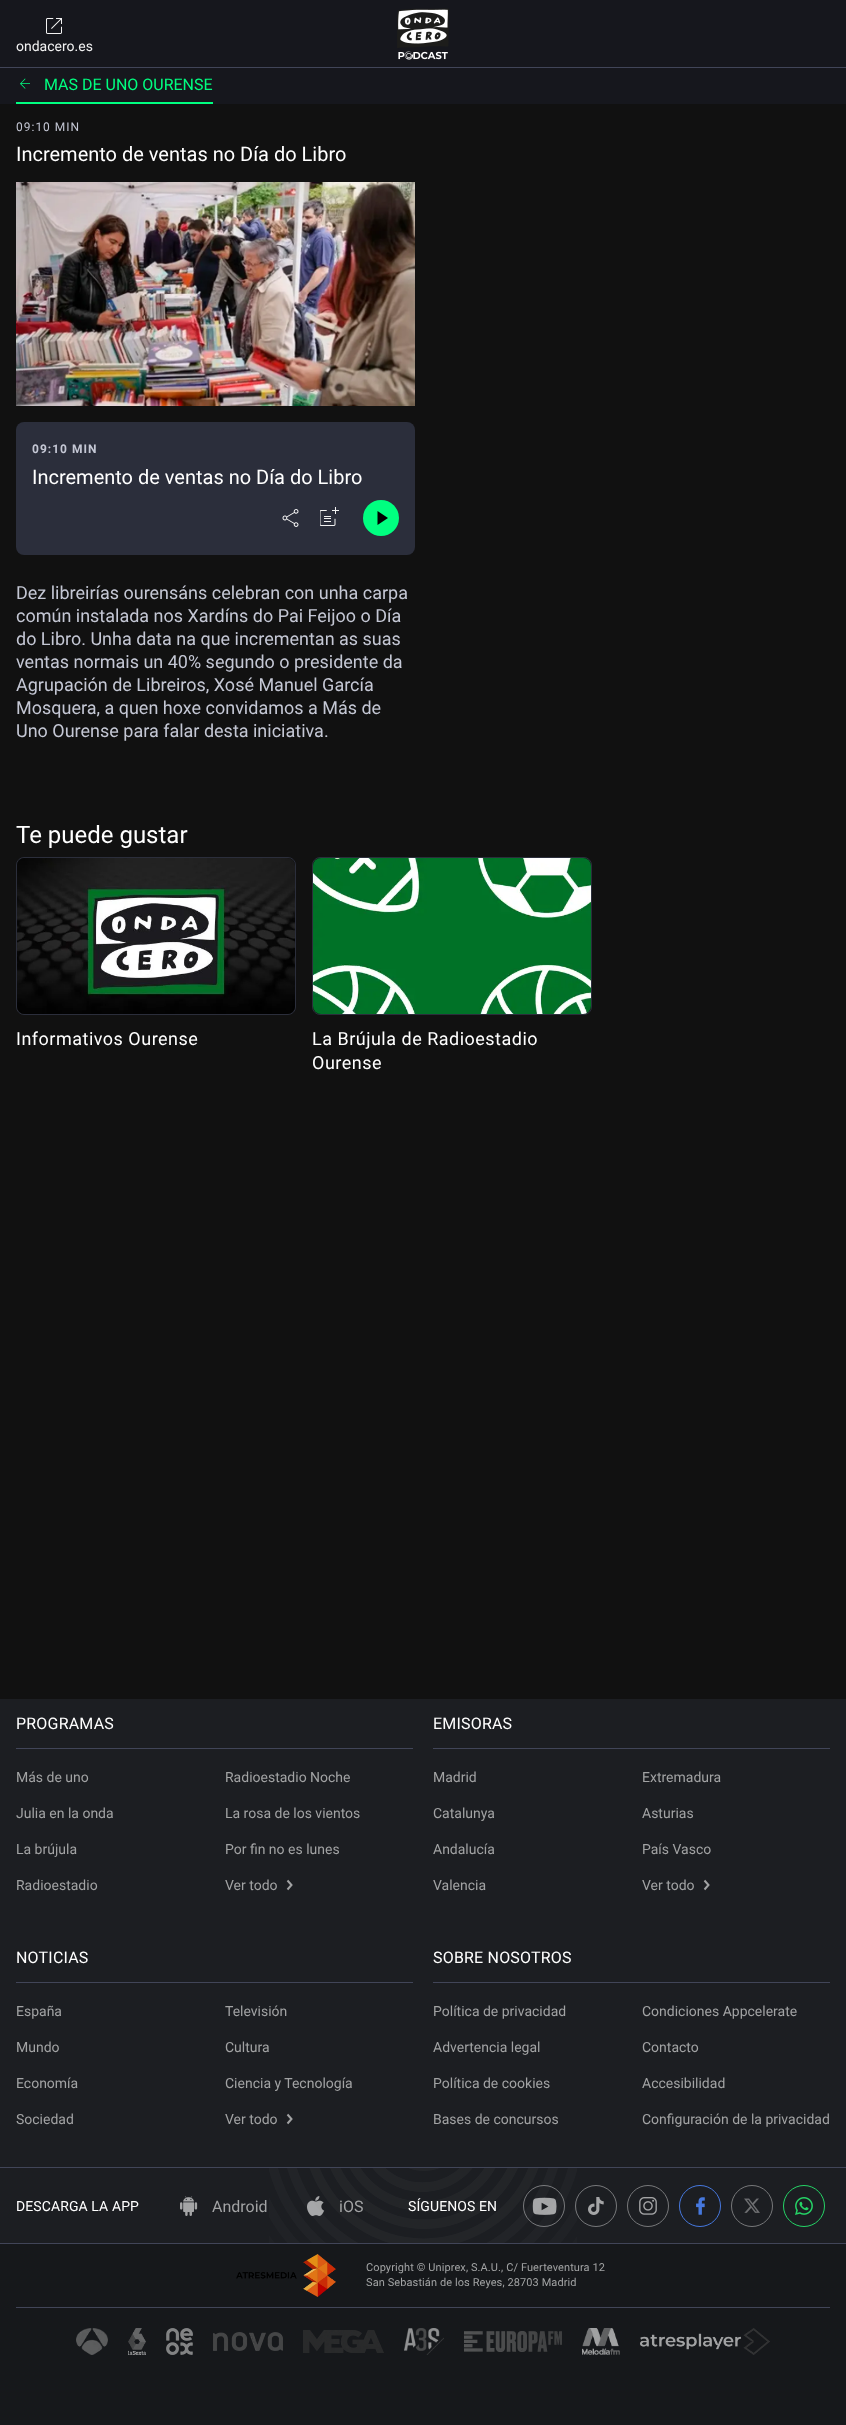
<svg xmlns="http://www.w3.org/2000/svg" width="846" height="2425">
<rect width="100%" height="100%" fill="#1c1e22"/>
<rect width="846" height="67" fill="#16171d"/>
<rect y="67" width="846" height="1" fill="#414558"/>
<image x="46" y="18" width="16" height="16" href="media/1.png"/>
<text x="16" y="51" style="font-family:Roboto;font-size:14px;fill:#f2f2f2">ondacero.es</text>
<image x="397" y="8" width="52" height="52" href="media/2.png"/>
<rect y="104" width="846" height="1595" fill="#111"/>
<rect y="68" width="846" height="36" fill="#16171d"/>
<rect x="16" y="102" width="197" height="2" fill="#00ff80"/>
<image x="20" y="78" width="10" height="11" href="media/3.png"/>
<text x="44" y="90" style="font-family:Roboto;font-size:16px;fill:#00ff80">MAS DE UNO OURENSE</text>
<text x="16" y="131" style="font-family:Roboto;font-size:12px;letter-spacing:1px;fill:#c4c7d4">09:10 MIN</text>
<text x="16" y="161" style="font-family:Roboto;font-size:20px;fill:#fff">Incremento de ventas no Día do Libro</text>
<image x="16" y="182" width="399" height="224" href="media/4.png"/>
<rect x="16" y="422" width="399" height="133" rx="8" fill="#2b2e3b"/>
<text x="32" y="453" style="font-family:Roboto;font-size:12px;font-weight:bold;letter-spacing:1px;fill:#c4c7d4">09:10 MIN</text>
<text x="32" y="484" style="font-family:Roboto;font-size:20px;fill:#fff">Incremento de ventas no Día do Libro</text>
<image x="282" y="509" width="17" height="18" href="media/5.png"/>
<image x="320" y="507" width="19" height="19" href="media/6.png"/>
<circle cx="381" cy="518" r="18" fill="#00ff80"/>
<path d="M377.5 511v14l10.5-7z" fill="#000"/>
<text x="16" y="599" style="font-family:Roboto;font-size:18px;fill:#c4c7d4">Dez libreirías ourensáns celebran con unha carpa</text>
<text x="16" y="622" style="font-family:Roboto;font-size:18px;fill:#c4c7d4">común instalada nos Xardíns do Pai Feijoo o Día</text>
<text x="16" y="645" style="font-family:Roboto;font-size:18px;fill:#c4c7d4">do Libro. Unha data na que incrementan as suas</text>
<text x="16" y="668" style="font-family:Roboto;font-size:18px;fill:#c4c7d4">ventas normais un 40% segundo o presidente da</text>
<text x="16" y="691" style="font-family:Roboto;font-size:18px;fill:#c4c7d4">Agrupación de Libreiros, Xosé Manuel García</text>
<text x="16" y="714" style="font-family:Roboto;font-size:18px;fill:#c4c7d4">Mosquera, a quen hoxe convidamos a Más de</text>
<text x="16" y="737" style="font-family:Roboto;font-size:18px;fill:#c4c7d4">Uno Ourense para falar desta iniciativa.</text>
<text x="16" y="843" style="font-family:Roboto;font-size:24px;fill:#fff">Te puede gustar</text>
<rect x="16.5" y="857.5" width="279" height="157" rx="7.5" fill="none" stroke="#2b2e3b"/>
<image x="17" y="858" width="278" height="156" href="media/7.png"/>
<text x="16" y="1045" style="font-family:Roboto;font-size:18px;letter-spacing:0.5px;fill:#fff">Informativos Ourense</text>
<rect x="312.5" y="857.5" width="279" height="157" rx="7.5" fill="none" stroke="#2b2e3b"/>
<image x="313" y="858" width="278" height="156" href="media/8.png"/>
<text x="312" y="1045" style="font-family:Roboto;font-size:18px;letter-spacing:0.5px;fill:#fff">La Brújula de Radioestadio</text>
<text x="312" y="1069" style="font-family:Roboto;font-size:18px;letter-spacing:0.5px;fill:#fff">Ourense</text>
<rect x="16" y="1748" width="397" height="1" fill="#414558"/>
<text x="16" y="1729" style="font-family:Roboto;font-size:16px;letter-spacing:0.2px;fill:#fff">PROGRAMAS</text>
<text x="16" y="1782" style="font-family:Roboto;font-size:14px;fill:#a2a3a4">Más de uno</text>
<text x="225" y="1782" style="font-family:Roboto;font-size:14px;fill:#a2a3a4">Radioestadio Noche</text>
<text x="16" y="1818" style="font-family:Roboto;font-size:14px;fill:#a2a3a4">Julia en la onda</text>
<text x="225" y="1818" style="font-family:Roboto;font-size:14px;fill:#a2a3a4">La rosa de los vientos</text>
<text x="16" y="1854" style="font-family:Roboto;font-size:14px;fill:#a2a3a4">La brújula</text>
<text x="225" y="1854" style="font-family:Roboto;font-size:14px;fill:#a2a3a4">Por fin no es lunes</text>
<text x="16" y="1890" style="font-family:Roboto;font-size:14px;fill:#a2a3a4">Radioestadio</text>
<text x="225" y="1890" style="font-family:Roboto;font-size:14px;fill:#a2a3a4">Ver todo</text>
<path d="M287.5 1880.5l4 4.5l-4 4.5" fill="none" stroke="#a2a3a4" stroke-width="2"/>
<rect x="433" y="1748" width="397" height="1" fill="#414558"/>
<text x="433" y="1729" style="font-family:Roboto;font-size:16px;letter-spacing:0.2px;fill:#fff">EMISORAS</text>
<text x="433" y="1782" style="font-family:Roboto;font-size:14px;fill:#a2a3a4">Madrid</text>
<text x="642" y="1782" style="font-family:Roboto;font-size:14px;fill:#a2a3a4">Extremadura</text>
<text x="433" y="1818" style="font-family:Roboto;font-size:14px;fill:#a2a3a4">Catalunya</text>
<text x="642" y="1818" style="font-family:Roboto;font-size:14px;fill:#a2a3a4">Asturias</text>
<text x="433" y="1854" style="font-family:Roboto;font-size:14px;fill:#a2a3a4">Andalucía</text>
<text x="642" y="1854" style="font-family:Roboto;font-size:14px;fill:#a2a3a4">País Vasco</text>
<text x="433" y="1890" style="font-family:Roboto;font-size:14px;fill:#a2a3a4">Valencia</text>
<text x="642" y="1890" style="font-family:Roboto;font-size:14px;fill:#a2a3a4">Ver todo</text>
<path d="M704.5 1880.5l4 4.5l-4 4.5" fill="none" stroke="#a2a3a4" stroke-width="2"/>
<rect x="16" y="1982" width="397" height="1" fill="#414558"/>
<text x="16" y="1963" style="font-family:Roboto;font-size:16px;letter-spacing:0.2px;fill:#fff">NOTICIAS</text>
<text x="16" y="2016" style="font-family:Roboto;font-size:14px;fill:#a2a3a4">España</text>
<text x="225" y="2016" style="font-family:Roboto;font-size:14px;fill:#a2a3a4">Televisión</text>
<text x="16" y="2052" style="font-family:Roboto;font-size:14px;fill:#a2a3a4">Mundo</text>
<text x="225" y="2052" style="font-family:Roboto;font-size:14px;fill:#a2a3a4">Cultura</text>
<text x="16" y="2088" style="font-family:Roboto;font-size:14px;fill:#a2a3a4">Economía</text>
<text x="225" y="2088" style="font-family:Roboto;font-size:14px;fill:#a2a3a4">Ciencia y Tecnología</text>
<text x="16" y="2124" style="font-family:Roboto;font-size:14px;fill:#a2a3a4">Sociedad</text>
<text x="225" y="2124" style="font-family:Roboto;font-size:14px;fill:#a2a3a4">Ver todo</text>
<path d="M287.5 2114.5l4 4.5l-4 4.5" fill="none" stroke="#a2a3a4" stroke-width="2"/>
<rect x="433" y="1982" width="397" height="1" fill="#414558"/>
<text x="433" y="1963" style="font-family:Roboto;font-size:16px;letter-spacing:0.2px;fill:#fff">SOBRE NOSOTROS</text>
<text x="433" y="2016" style="font-family:Roboto;font-size:14px;fill:#a2a3a4">Política de privacidad</text>
<text x="642" y="2016" style="font-family:Roboto;font-size:14px;fill:#a2a3a4">Condiciones Appcelerate</text>
<text x="433" y="2052" style="font-family:Roboto;font-size:14px;fill:#a2a3a4">Advertencia legal</text>
<text x="642" y="2052" style="font-family:Roboto;font-size:14px;fill:#a2a3a4">Contacto</text>
<text x="433" y="2088" style="font-family:Roboto;font-size:14px;fill:#a2a3a4">Política de cookies</text>
<text x="642" y="2088" style="font-family:Roboto;font-size:14px;fill:#a2a3a4">Accesibilidad</text>
<text x="433" y="2124" style="font-family:Roboto;font-size:14px;fill:#a2a3a4">Bases de concursos</text>
<text x="642" y="2124" style="font-family:Roboto;font-size:14px;fill:#a2a3a4">Configuración de la privacidad</text>
<image x="269" y="2168" width="308" height="75" href="media/9.png"/>
<rect y="2167" width="846" height="1" fill="#414558"/>
<rect y="2243" width="846" height="1" fill="#414558"/>
<text x="16" y="2211" style="font-family:Roboto;font-size:14px;letter-spacing:0.1px;fill:#fff">DESCARGA LA APP</text>
<image x="180" y="2196" width="18" height="20" href="media/10.png"/>
<text x="212" y="2212" style="font-family:Roboto;font-size:16px;fill:#a2a3a4">Android</text>
<image x="307" y="2196" width="18" height="20" href="media/11.png"/>
<text x="339" y="2212" style="font-family:Roboto;font-size:16px;fill:#a2a3a4">iOS</text>
<text x="408" y="2211" style="font-family:Roboto;font-size:14px;letter-spacing:0.1px;fill:#fff">SÍGUENOS EN</text>
<circle cx="544" cy="2206" r="20.5" fill="none" stroke="#ffffff66"/>
<image x="532" y="2197" width="25" height="18" href="media/12.png"/>
<circle cx="596" cy="2206" r="20.5" fill="none" stroke="#ffffff66"/>
<image x="588" y="2197" width="16" height="18" href="media/13.png"/>
<circle cx="648" cy="2206" r="20.5" fill="none" stroke="#77787a"/>
<image x="639" y="2197" width="18" height="18" href="media/14.png"/>
<circle cx="700" cy="2206" r="20.5" fill="none" stroke="#4678de"/>
<image x="696" y="2197" width="9" height="18" href="media/15.png"/>
<circle cx="752" cy="2206" r="20.5" fill="none" stroke="#77787a"/>
<image x="744" y="2198" width="16" height="15" href="media/16.png"/>
<circle cx="804" cy="2206" r="20.5" fill="none" stroke="#25d366"/>
<image x="795" y="2197" width="18" height="18" href="media/17.png"/>
<rect y="2244" width="846" height="181" fill="#16181b"/>
<rect x="16" y="2307" width="814" height="1" fill="#414558"/>
<image x="236" y="2254" width="100" height="43" href="media/18.png"/>
<text x="366" y="2271" style="font-family:Roboto;font-size:11px;letter-spacing:0.1px;fill:#a2a3a4">Copyright © Uniprex, S.A.U., C/ Fuerteventura 12</text>
<text x="366" y="2286" style="font-family:Roboto;font-size:11px;letter-spacing:0.1px;fill:#a2a3a4">San Sebastián de los Reyes, 28703 Madrid</text>
<image x="76" y="2328" width="32" height="27" href="media/19.png"/>
<image x="128" y="2328" width="18" height="27" href="media/20.png"/>
<image x="166" y="2328" width="27" height="27" href="media/21.png"/>
<image x="213" y="2332" width="70" height="19" href="media/22.png"/>
<image x="303" y="2330" width="81" height="23" href="media/23.png"/>
<image x="404" y="2328" width="40" height="27" href="media/24.png"/>
<image x="464" y="2331" width="98" height="21" href="media/25.png"/>
<image x="582" y="2328" width="38" height="27" href="media/26.png"/>
<image x="640" y="2328" width="130" height="27" href="media/27.png"/>
</svg>
